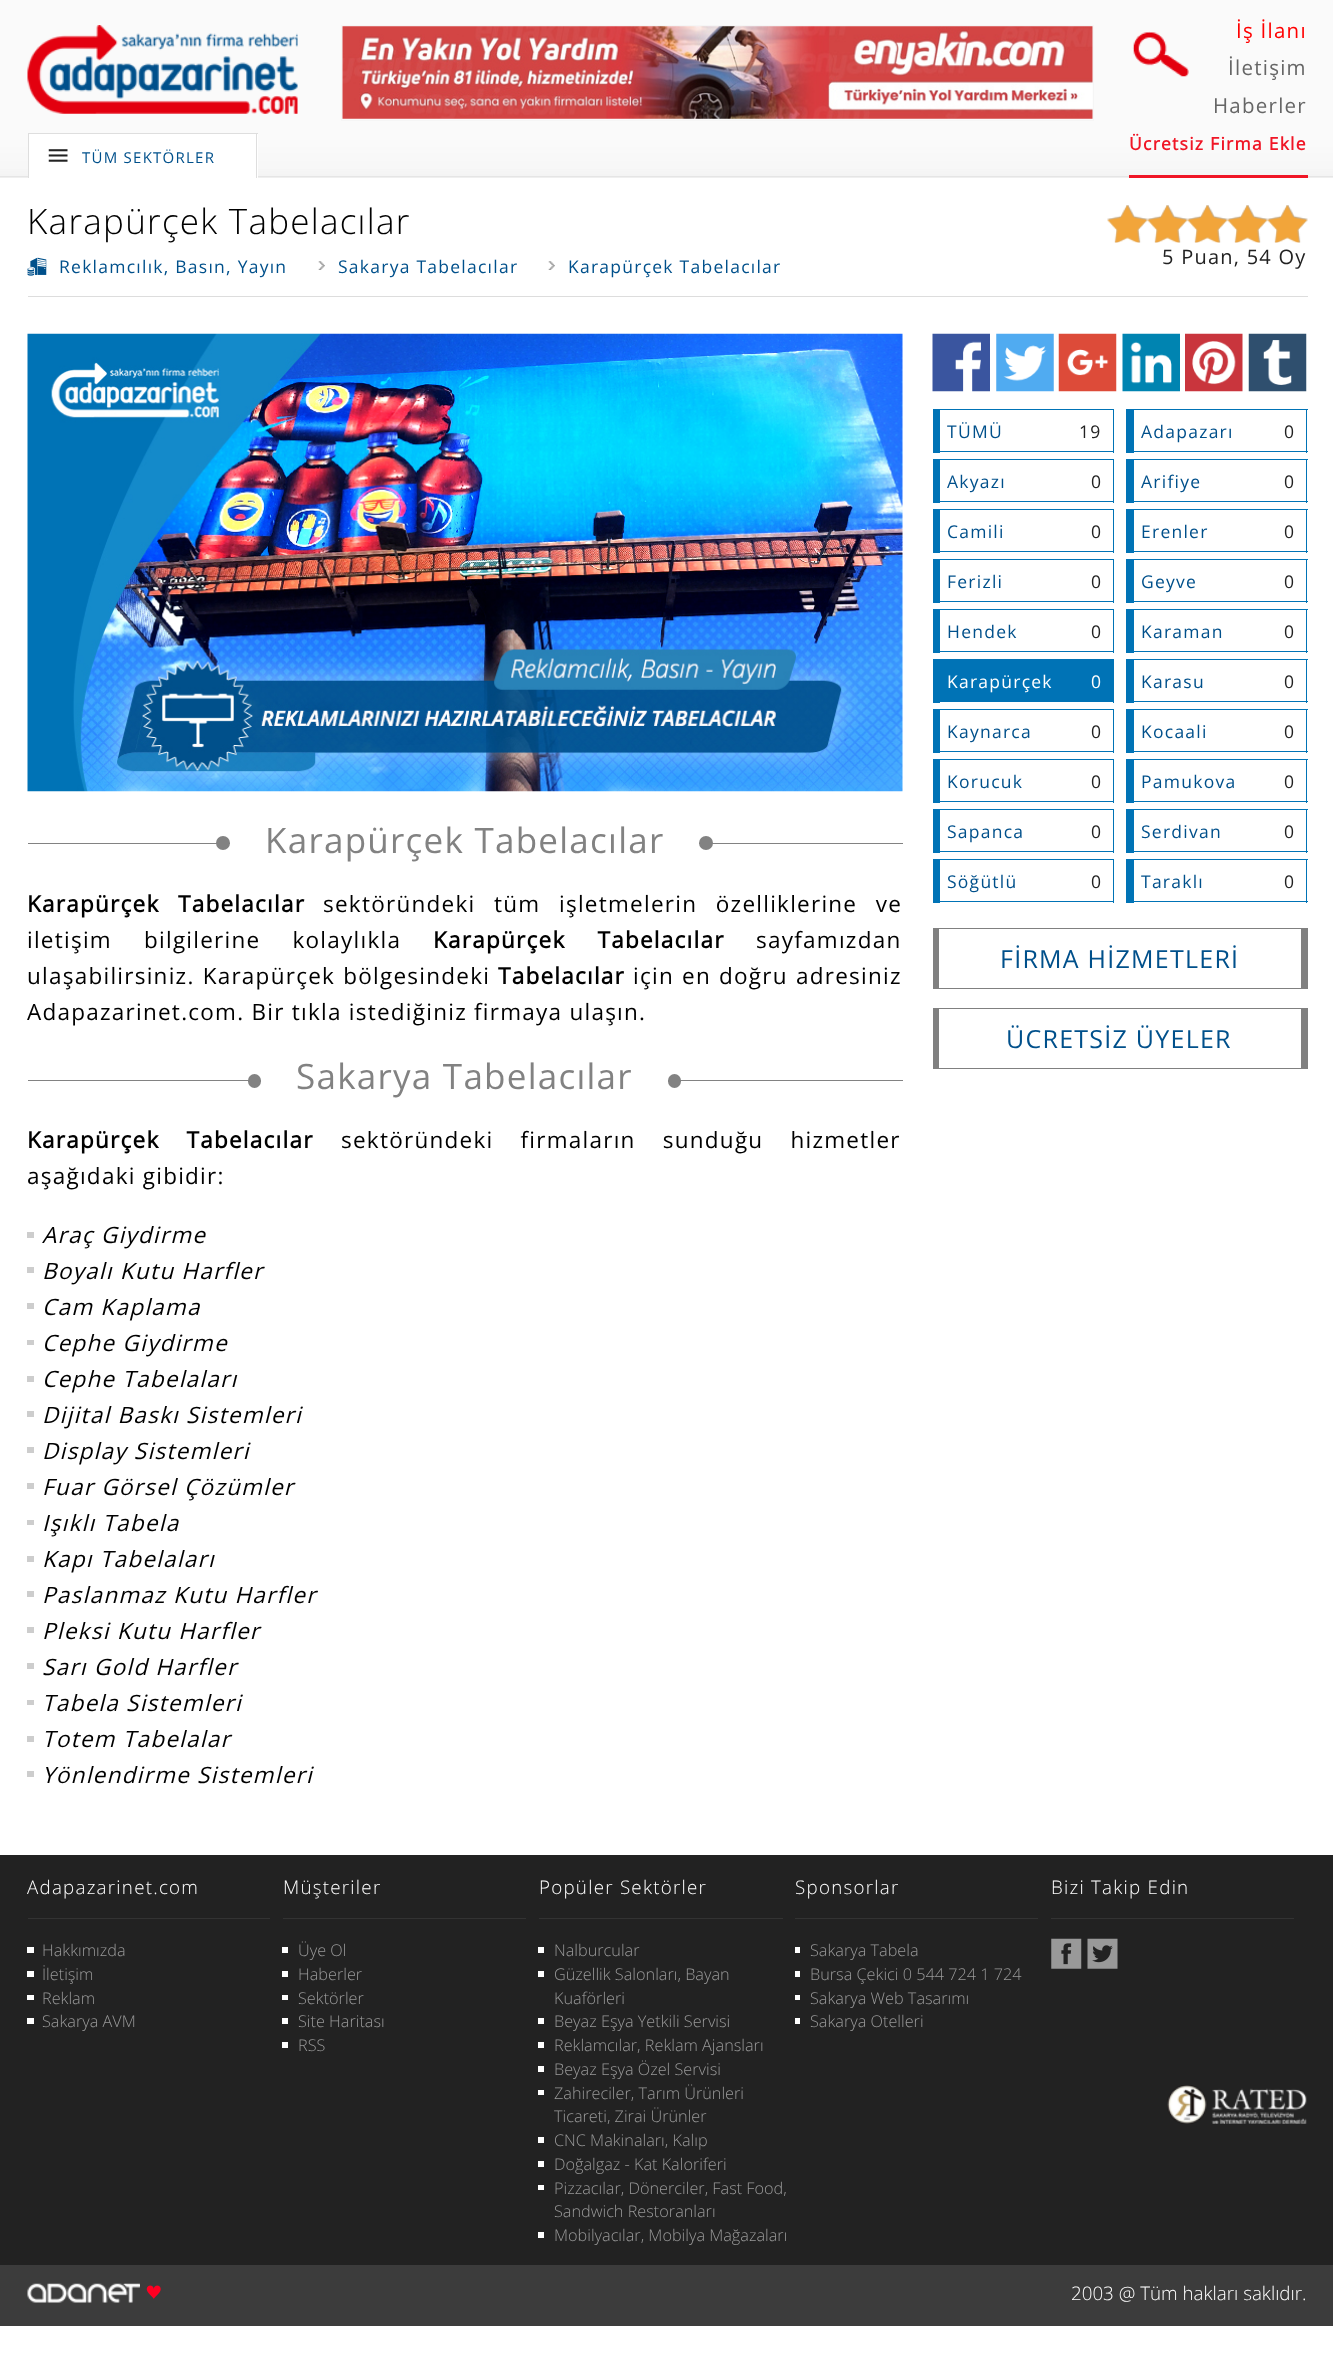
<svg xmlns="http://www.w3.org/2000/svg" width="1333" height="2365">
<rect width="100%" height="100%" fill="#fff"/>
<image x="0" y="0" width="1333" height="178" href="media/1.png"/>
<image x="27" y="25" width="271" height="89" href="media/2.png"/>
<rect x="341.5" y="25.5" width="752" height="95" fill="none" stroke="#f5f5f5"/>
<image x="342" y="26" width="751" height="93" href="media/3.png"/>
<text x="1236" y="38" style="font-family:Open Sans;font-size:20.5px;letter-spacing:1.25px;fill:#f00">İş İlanı</text>
<text x="1228" y="75" style="font-family:Open Sans;font-size:20.5px;letter-spacing:1.25px;fill:#666">İletişim</text>
<text x="1213" y="113" style="font-family:Open Sans;font-size:20.5px;letter-spacing:1.25px;fill:#666">Haberler</text>
<rect x="1129" y="175" width="179" height="3" fill="#f01626"/>
<text x="1129" y="150" style="font-family:Open Sans;font-size:17.5px;font-weight:bold;letter-spacing:1.25px;fill:#f01626">Ücretsiz Firma Ekle</text>
<image x="1132" y="31" width="57" height="46" href="media/4.png"/>
<rect x="29" y="134" width="229" height="44" fill="#fff"/>
<rect x="28" y="133" width="230" height="1" fill="#dedede"/>
<rect x="256" y="133" width="1" height="45" fill="#dedede"/>
<rect x="28" y="133" width="1" height="45" fill="#dedede"/>
<image x="48" y="149" width="20" height="13" href="media/5.png"/>
<text x="82" y="163" style="font-family:Open Sans;font-size:15px;letter-spacing:1.25px;fill:#00508b">TÜM SEKTÖRLER</text>
<rect x="28" y="296" width="1280" height="1" fill="#ddd"/>
<text x="27" y="234" style="font-family:Open Sans;font-size:35px;font-weight:300;letter-spacing:1.25px;fill:#000">Karapürçek Tabelacılar</text>
<image x="27" y="257" width="20" height="19" href="media/6.png"/>
<text x="59" y="273" style="font-family:Open Sans;font-size:17.5px;letter-spacing:1.25px;fill:#00508b">Reklamcılık, Basın, Yayın</text>
<image x="318" y="261" width="7" height="9" href="media/7.png"/>
<text x="338" y="273" style="font-family:Open Sans;font-size:17.5px;letter-spacing:1.25px;fill:#00508b">Sakarya Tabelacılar</text>
<image x="548" y="261" width="7" height="9" href="media/8.png"/>
<text x="568" y="273" style="font-family:Open Sans;font-size:17.5px;letter-spacing:1.25px;fill:#00508b">Karapürçek Tabelacılar</text>
<image x="1107" y="205" width="201" height="38" href="media/9.png"/>
<image x="1107" y="205" width="201" height="38" href="media/10.png"/>
<text x="1162" y="264" style="font-family:Open Sans;font-size:20px;letter-spacing:1.25px;fill:#222">5 Puan, 54 Oy</text>
<image x="932" y="333" width="58" height="59" href="media/11.png"/>
<image x="996" y="333" width="58" height="59" href="media/12.png"/>
<image x="1058" y="333" width="59" height="59" href="media/13.png"/>
<image x="1122" y="333" width="58" height="59" href="media/14.png"/>
<image x="1185" y="333" width="58" height="59" href="media/15.png"/>
<image x="1248" y="333" width="59" height="59" href="media/16.png"/>
<rect x="933" y="409" width="181" height="1" fill="#0073b6"/>
<rect x="1113" y="409" width="1" height="44" fill="#0073b6"/>
<rect x="933" y="451" width="181" height="1" fill="#0073b6"/>
<rect x="933" y="409" width="7" height="44" fill="#0073b6"/>
<text x="947" y="438" style="font-family:Open Sans;font-size:17.5px;letter-spacing:1.25px;fill:#00508b">TÜMÜ</text>
<text x="1079" y="438" style="font-family:Open Sans;font-size:17.5px;letter-spacing:1.25px;fill:#222">19</text>
<rect x="1126" y="409" width="182" height="1" fill="#0073b6"/>
<rect x="1306" y="409" width="1" height="44" fill="#0073b6"/>
<rect x="1126" y="451" width="182" height="1" fill="#0073b6"/>
<rect x="1126" y="409" width="8" height="44" fill="#0073b6"/>
<text x="1141" y="438" style="font-family:Open Sans;font-size:17.5px;letter-spacing:1.25px;fill:#00508b">Adapazarı</text>
<text x="1284" y="438" style="font-family:Open Sans;font-size:17.5px;letter-spacing:1.25px;fill:#222">0</text>
<rect x="933" y="459" width="181" height="1" fill="#0073b6"/>
<rect x="1113" y="459" width="1" height="44" fill="#0073b6"/>
<rect x="933" y="501" width="181" height="1" fill="#0073b6"/>
<rect x="933" y="459" width="7" height="44" fill="#0073b6"/>
<text x="947" y="488" style="font-family:Open Sans;font-size:17.5px;letter-spacing:1.25px;fill:#00508b">Akyazı</text>
<text x="1091" y="488" style="font-family:Open Sans;font-size:17.5px;letter-spacing:1.25px;fill:#222">0</text>
<rect x="1126" y="459" width="182" height="1" fill="#0073b6"/>
<rect x="1306" y="459" width="1" height="44" fill="#0073b6"/>
<rect x="1126" y="501" width="182" height="1" fill="#0073b6"/>
<rect x="1126" y="459" width="8" height="44" fill="#0073b6"/>
<text x="1141" y="488" style="font-family:Open Sans;font-size:17.5px;letter-spacing:1.25px;fill:#00508b">Arifiye</text>
<text x="1284" y="488" style="font-family:Open Sans;font-size:17.5px;letter-spacing:1.25px;fill:#222">0</text>
<rect x="933" y="509" width="181" height="1" fill="#0073b6"/>
<rect x="1113" y="509" width="1" height="44" fill="#0073b6"/>
<rect x="933" y="551" width="181" height="1" fill="#0073b6"/>
<rect x="933" y="509" width="7" height="44" fill="#0073b6"/>
<text x="947" y="538" style="font-family:Open Sans;font-size:17.5px;letter-spacing:1.25px;fill:#00508b">Camili</text>
<text x="1091" y="538" style="font-family:Open Sans;font-size:17.5px;letter-spacing:1.25px;fill:#222">0</text>
<rect x="1126" y="509" width="182" height="1" fill="#0073b6"/>
<rect x="1306" y="509" width="1" height="44" fill="#0073b6"/>
<rect x="1126" y="551" width="182" height="1" fill="#0073b6"/>
<rect x="1126" y="509" width="8" height="44" fill="#0073b6"/>
<text x="1141" y="538" style="font-family:Open Sans;font-size:17.5px;letter-spacing:1.25px;fill:#00508b">Erenler</text>
<text x="1284" y="538" style="font-family:Open Sans;font-size:17.5px;letter-spacing:1.25px;fill:#222">0</text>
<rect x="933" y="559" width="181" height="1" fill="#0073b6"/>
<rect x="1113" y="559" width="1" height="44" fill="#0073b6"/>
<rect x="933" y="601" width="181" height="1" fill="#0073b6"/>
<rect x="933" y="559" width="7" height="44" fill="#0073b6"/>
<text x="947" y="588" style="font-family:Open Sans;font-size:17.5px;letter-spacing:1.25px;fill:#00508b">Ferizli</text>
<text x="1091" y="588" style="font-family:Open Sans;font-size:17.5px;letter-spacing:1.25px;fill:#222">0</text>
<rect x="1126" y="559" width="182" height="1" fill="#0073b6"/>
<rect x="1306" y="559" width="1" height="44" fill="#0073b6"/>
<rect x="1126" y="601" width="182" height="1" fill="#0073b6"/>
<rect x="1126" y="559" width="8" height="44" fill="#0073b6"/>
<text x="1141" y="588" style="font-family:Open Sans;font-size:17.5px;letter-spacing:1.25px;fill:#00508b">Geyve</text>
<text x="1284" y="588" style="font-family:Open Sans;font-size:17.5px;letter-spacing:1.25px;fill:#222">0</text>
<rect x="933" y="609" width="181" height="1" fill="#0073b6"/>
<rect x="1113" y="609" width="1" height="44" fill="#0073b6"/>
<rect x="933" y="651" width="181" height="1" fill="#0073b6"/>
<rect x="933" y="609" width="7" height="44" fill="#0073b6"/>
<text x="947" y="638" style="font-family:Open Sans;font-size:17.5px;letter-spacing:1.25px;fill:#00508b">Hendek</text>
<text x="1091" y="638" style="font-family:Open Sans;font-size:17.5px;letter-spacing:1.25px;fill:#222">0</text>
<rect x="1126" y="609" width="182" height="1" fill="#0073b6"/>
<rect x="1306" y="609" width="1" height="44" fill="#0073b6"/>
<rect x="1126" y="651" width="182" height="1" fill="#0073b6"/>
<rect x="1126" y="609" width="8" height="44" fill="#0073b6"/>
<text x="1141" y="638" style="font-family:Open Sans;font-size:17.5px;letter-spacing:1.25px;fill:#00508b">Karaman</text>
<text x="1284" y="638" style="font-family:Open Sans;font-size:17.5px;letter-spacing:1.25px;fill:#222">0</text>
<rect x="940" y="660" width="173" height="41" fill="#0073b6"/>
<rect x="933" y="659" width="181" height="1" fill="#0073b6"/>
<rect x="1113" y="659" width="1" height="44" fill="#0073b6"/>
<rect x="933" y="701" width="181" height="1" fill="#0073b6"/>
<rect x="933" y="659" width="7" height="44" fill="#0073b6"/>
<text x="947" y="688" style="font-family:Open Sans;font-size:17.5px;letter-spacing:1.25px;fill:#fff">Karapürçek</text>
<text x="1091" y="688" style="font-family:Open Sans;font-size:17.5px;letter-spacing:1.25px;fill:#fff">0</text>
<rect x="1126" y="659" width="182" height="1" fill="#0073b6"/>
<rect x="1306" y="659" width="1" height="44" fill="#0073b6"/>
<rect x="1126" y="701" width="182" height="1" fill="#0073b6"/>
<rect x="1126" y="659" width="8" height="44" fill="#0073b6"/>
<text x="1141" y="688" style="font-family:Open Sans;font-size:17.5px;letter-spacing:1.25px;fill:#00508b">Karasu</text>
<text x="1284" y="688" style="font-family:Open Sans;font-size:17.5px;letter-spacing:1.25px;fill:#222">0</text>
<rect x="933" y="709" width="181" height="1" fill="#0073b6"/>
<rect x="1113" y="709" width="1" height="44" fill="#0073b6"/>
<rect x="933" y="751" width="181" height="1" fill="#0073b6"/>
<rect x="933" y="709" width="7" height="44" fill="#0073b6"/>
<text x="947" y="738" style="font-family:Open Sans;font-size:17.5px;letter-spacing:1.25px;fill:#00508b">Kaynarca</text>
<text x="1091" y="738" style="font-family:Open Sans;font-size:17.5px;letter-spacing:1.25px;fill:#222">0</text>
<rect x="1126" y="709" width="182" height="1" fill="#0073b6"/>
<rect x="1306" y="709" width="1" height="44" fill="#0073b6"/>
<rect x="1126" y="751" width="182" height="1" fill="#0073b6"/>
<rect x="1126" y="709" width="8" height="44" fill="#0073b6"/>
<text x="1141" y="738" style="font-family:Open Sans;font-size:17.5px;letter-spacing:1.25px;fill:#00508b">Kocaali</text>
<text x="1284" y="738" style="font-family:Open Sans;font-size:17.5px;letter-spacing:1.25px;fill:#222">0</text>
<rect x="933" y="759" width="181" height="1" fill="#0073b6"/>
<rect x="1113" y="759" width="1" height="44" fill="#0073b6"/>
<rect x="933" y="801" width="181" height="1" fill="#0073b6"/>
<rect x="933" y="759" width="7" height="44" fill="#0073b6"/>
<text x="947" y="788" style="font-family:Open Sans;font-size:17.5px;letter-spacing:1.25px;fill:#00508b">Korucuk</text>
<text x="1091" y="788" style="font-family:Open Sans;font-size:17.5px;letter-spacing:1.25px;fill:#222">0</text>
<rect x="1126" y="759" width="182" height="1" fill="#0073b6"/>
<rect x="1306" y="759" width="1" height="44" fill="#0073b6"/>
<rect x="1126" y="801" width="182" height="1" fill="#0073b6"/>
<rect x="1126" y="759" width="8" height="44" fill="#0073b6"/>
<text x="1141" y="788" style="font-family:Open Sans;font-size:17.5px;letter-spacing:1.25px;fill:#00508b">Pamukova</text>
<text x="1284" y="788" style="font-family:Open Sans;font-size:17.5px;letter-spacing:1.25px;fill:#222">0</text>
<rect x="933" y="809" width="181" height="1" fill="#0073b6"/>
<rect x="1113" y="809" width="1" height="44" fill="#0073b6"/>
<rect x="933" y="851" width="181" height="1" fill="#0073b6"/>
<rect x="933" y="809" width="7" height="44" fill="#0073b6"/>
<text x="947" y="838" style="font-family:Open Sans;font-size:17.5px;letter-spacing:1.25px;fill:#00508b">Sapanca</text>
<text x="1091" y="838" style="font-family:Open Sans;font-size:17.5px;letter-spacing:1.25px;fill:#222">0</text>
<rect x="1126" y="809" width="182" height="1" fill="#0073b6"/>
<rect x="1306" y="809" width="1" height="44" fill="#0073b6"/>
<rect x="1126" y="851" width="182" height="1" fill="#0073b6"/>
<rect x="1126" y="809" width="8" height="44" fill="#0073b6"/>
<text x="1141" y="838" style="font-family:Open Sans;font-size:17.5px;letter-spacing:1.25px;fill:#00508b">Serdivan</text>
<text x="1284" y="838" style="font-family:Open Sans;font-size:17.5px;letter-spacing:1.25px;fill:#222">0</text>
<rect x="933" y="859" width="181" height="1" fill="#0073b6"/>
<rect x="1113" y="859" width="1" height="44" fill="#0073b6"/>
<rect x="933" y="901" width="181" height="1" fill="#0073b6"/>
<rect x="933" y="859" width="7" height="44" fill="#0073b6"/>
<text x="947" y="888" style="font-family:Open Sans;font-size:17.5px;letter-spacing:1.25px;fill:#00508b">Söğütlü</text>
<text x="1091" y="888" style="font-family:Open Sans;font-size:17.5px;letter-spacing:1.25px;fill:#222">0</text>
<rect x="1126" y="859" width="182" height="1" fill="#0073b6"/>
<rect x="1306" y="859" width="1" height="44" fill="#0073b6"/>
<rect x="1126" y="901" width="182" height="1" fill="#0073b6"/>
<rect x="1126" y="859" width="8" height="44" fill="#0073b6"/>
<text x="1141" y="888" style="font-family:Open Sans;font-size:17.5px;letter-spacing:1.25px;fill:#00508b">Taraklı</text>
<text x="1284" y="888" style="font-family:Open Sans;font-size:17.5px;letter-spacing:1.25px;fill:#222">0</text>
<rect x="933" y="928" width="375" height="1" fill="#808080"/>
<rect x="1301" y="928" width="7" height="61" fill="#808080"/>
<rect x="933" y="988" width="375" height="1" fill="#808080"/>
<rect x="933" y="928" width="6" height="61" fill="#808080"/>
<text x="1000" y="968" style="font-family:Open Sans;font-size:25px;letter-spacing:1.25px;fill:#00508b">FİRMA HİZMETLERİ</text>
<rect x="933" y="1008" width="375" height="1" fill="#808080"/>
<rect x="1301" y="1008" width="7" height="61" fill="#808080"/>
<rect x="933" y="1068" width="375" height="1" fill="#808080"/>
<rect x="933" y="1008" width="6" height="61" fill="#808080"/>
<text x="1006" y="1048" style="font-family:Open Sans;font-size:25px;letter-spacing:1.25px;fill:#00508b">ÜCRETSİZ ÜYELER</text>
<image x="27" y="333" width="876" height="459" href="media/17.png"/>
<rect x="28" y="843" width="202" height="1" fill="#828282"/>
<circle cx="223" cy="843" r="7" fill="#828282"/>
<text x="265" y="853" style="font-family:Open Sans;font-size:35px;letter-spacing:1.25px;fill:#828282">Karapürçek Tabelacılar</text>
<rect x="699" y="843" width="204" height="1" fill="#828282"/>
<circle cx="706" cy="843" r="7" fill="#828282"/>
<text x="27" y="912" word-spacing="11.5" style="font-family:Open Sans;font-size:22.5px;font-weight:bold;letter-spacing:1.25px;fill:#000">Karapürçek Tabelacılar</text>
<text x="323" y="912" word-spacing="11.5" style="font-family:Open Sans;font-size:22.5px;letter-spacing:1.25px;fill:#000">sektöründeki tüm işletmelerin özelliklerine ve</text>
<text x="27" y="948" word-spacing="25" style="font-family:Open Sans;font-size:22.5px;letter-spacing:1.25px;fill:#000">iletişim bilgilerine kolaylıkla</text>
<text x="433" y="948" word-spacing="25" style="font-family:Open Sans;font-size:22.5px;font-weight:bold;letter-spacing:1.25px;fill:#000">Karapürçek Tabelacılar</text>
<text x="756" y="948" style="font-family:Open Sans;font-size:22.5px;letter-spacing:1.25px;fill:#000">sayfamızdan</text>
<text x="27" y="984" word-spacing="1" style="font-family:Open Sans;font-size:22.5px;letter-spacing:1.25px;fill:#000">ulaşabilirsiniz. Karapürçek bölgesindeki</text>
<text x="498" y="984" style="font-family:Open Sans;font-size:22.5px;font-weight:bold;letter-spacing:1.25px;fill:#000">Tabelacılar</text>
<text x="633" y="984" word-spacing="1" style="font-family:Open Sans;font-size:22.5px;letter-spacing:1.25px;fill:#000">için en doğru adresiniz</text>
<text x="27" y="1020" style="font-family:Open Sans;font-size:22.5px;letter-spacing:1.25px;fill:#000">Adapazarinet.com. Bir tıkla istediğiniz firmaya ulaşın.</text>
<rect x="28" y="1080" width="233" height="1" fill="#828282"/>
<rect x="248" y="1074" width="13" height="14" rx="6.5" fill="#828282"/>
<text x="296" y="1089" style="font-family:Open Sans;font-size:35px;letter-spacing:1.25px;fill:#828282">Sakarya Tabelacılar</text>
<rect x="668" y="1080" width="235" height="1" fill="#828282"/>
<rect x="668" y="1074" width="13" height="14" rx="6.5" fill="#828282"/>
<text x="27" y="1148" word-spacing="20" style="font-family:Open Sans;font-size:22.5px;font-weight:bold;letter-spacing:1.25px;fill:#000">Karapürçek Tabelacılar</text>
<text x="341" y="1148" word-spacing="20" style="font-family:Open Sans;font-size:22.5px;letter-spacing:1.25px;fill:#000">sektöründeki firmaların sunduğu hizmetler</text>
<text x="27" y="1184" style="font-family:Open Sans;font-size:22.5px;letter-spacing:1.25px;fill:#000">aşağıdaki gibidir:</text>
<rect x="27" y="1232" width="7" height="6" fill="#cdcdcd"/>
<text x="42" y="1243" style="font-family:Open Sans;font-size:22.5px;font-style:italic;letter-spacing:1.25px;fill:#000">Araç Giydirme</text>
<rect x="27" y="1267" width="7" height="6" fill="#cdcdcd"/>
<text x="42" y="1279" style="font-family:Open Sans;font-size:22.5px;font-style:italic;letter-spacing:1.25px;fill:#000">Boyalı Kutu Harfler</text>
<rect x="27" y="1303" width="7" height="6" fill="#cdcdcd"/>
<text x="42" y="1315" style="font-family:Open Sans;font-size:22.5px;font-style:italic;letter-spacing:1.25px;fill:#000">Cam Kaplama</text>
<rect x="27" y="1340" width="7" height="5" fill="#cdcdcd"/>
<text x="42" y="1351" style="font-family:Open Sans;font-size:22.5px;font-style:italic;letter-spacing:1.25px;fill:#000">Cephe Giydirme</text>
<rect x="27" y="1376" width="7" height="6" fill="#cdcdcd"/>
<text x="42" y="1387" style="font-family:Open Sans;font-size:22.5px;font-style:italic;letter-spacing:1.25px;fill:#000">Cephe Tabelaları</text>
<rect x="27" y="1411" width="7" height="6" fill="#cdcdcd"/>
<text x="42" y="1423" style="font-family:Open Sans;font-size:22.5px;font-style:italic;letter-spacing:1.25px;fill:#000">Dijital Baskı Sistemleri</text>
<rect x="27" y="1447" width="7" height="6" fill="#cdcdcd"/>
<text x="42" y="1459" style="font-family:Open Sans;font-size:22.5px;font-style:italic;letter-spacing:1.25px;fill:#000">Display Sistemleri</text>
<rect x="27" y="1483" width="7" height="6" fill="#cdcdcd"/>
<text x="42" y="1495" style="font-family:Open Sans;font-size:22.5px;font-style:italic;letter-spacing:1.25px;fill:#000">Fuar Görsel Çözümler</text>
<rect x="27" y="1520" width="7" height="5" fill="#cdcdcd"/>
<text x="42" y="1531" style="font-family:Open Sans;font-size:22.5px;font-style:italic;letter-spacing:1.25px;fill:#000">Işıklı Tabela</text>
<rect x="27" y="1556" width="7" height="6" fill="#cdcdcd"/>
<text x="42" y="1567" style="font-family:Open Sans;font-size:22.5px;font-style:italic;letter-spacing:1.25px;fill:#000">Kapı Tabelaları</text>
<rect x="27" y="1591" width="7" height="6" fill="#cdcdcd"/>
<text x="42" y="1603" style="font-family:Open Sans;font-size:22.5px;font-style:italic;letter-spacing:1.25px;fill:#000">Paslanmaz Kutu Harfler</text>
<rect x="27" y="1627" width="7" height="6" fill="#cdcdcd"/>
<text x="42" y="1639" style="font-family:Open Sans;font-size:22.5px;font-style:italic;letter-spacing:1.25px;fill:#000">Pleksi Kutu Harfler</text>
<rect x="27" y="1663" width="7" height="6" fill="#cdcdcd"/>
<text x="42" y="1675" style="font-family:Open Sans;font-size:22.5px;font-style:italic;letter-spacing:1.25px;fill:#000">Sarı Gold Harfler</text>
<rect x="27" y="1700" width="7" height="5" fill="#cdcdcd"/>
<text x="42" y="1711" style="font-family:Open Sans;font-size:22.5px;font-style:italic;letter-spacing:1.25px;fill:#000">Tabela Sistemleri</text>
<rect x="27" y="1736" width="7" height="6" fill="#cdcdcd"/>
<text x="42" y="1747" style="font-family:Open Sans;font-size:22.5px;font-style:italic;letter-spacing:1.25px;fill:#000">Totem Tabelalar</text>
<rect x="27" y="1771" width="7" height="6" fill="#cdcdcd"/>
<text x="42" y="1783" style="font-family:Open Sans;font-size:22.5px;font-style:italic;letter-spacing:1.25px;fill:#000">Yönlendirme Sistemleri</text>
<rect y="1855" width="1333" height="410" fill="#222"/>
<rect x="28" y="1918" width="242" height="1" fill="#333"/>
<text x="27" y="1894" style="font-family:Open Sans;font-size:18.75px;font-weight:300;letter-spacing:1.25px;fill:#fff">Adapazarinet.com</text>
<rect x="27" y="1947" width="7" height="6" fill="#fff"/>
<text x="42" y="1956" style="font-family:Open Sans;font-size:16.25px;font-weight:300;fill:#999">Hakkımızda</text>
<rect x="27" y="1971" width="7" height="6" fill="#fff"/>
<text x="42" y="1980" style="font-family:Open Sans;font-size:16.25px;font-weight:300;fill:#999">İletişim</text>
<rect x="27" y="1995" width="7" height="5" fill="#fff"/>
<text x="42" y="2004" style="font-family:Open Sans;font-size:16.25px;font-weight:300;fill:#999">Reklam</text>
<rect x="27" y="2018" width="7" height="6" fill="#fff"/>
<text x="42" y="2027" style="font-family:Open Sans;font-size:16.25px;font-weight:300;fill:#999">Sakarya AVM</text>
<rect x="283" y="1918" width="243" height="1" fill="#333"/>
<text x="283" y="1894" style="font-family:Open Sans;font-size:18.75px;font-weight:300;letter-spacing:1.25px;fill:#fff">Müşteriler</text>
<rect x="282" y="1947" width="6" height="6" fill="#fff"/>
<text x="298" y="1956" style="font-family:Open Sans;font-size:16.25px;font-weight:300;fill:#999">Üye Ol</text>
<rect x="282" y="1971" width="6" height="6" fill="#fff"/>
<text x="298" y="1980" style="font-family:Open Sans;font-size:16.25px;font-weight:300;fill:#999">Haberler</text>
<rect x="282" y="1995" width="6" height="5" fill="#fff"/>
<text x="298" y="2004" style="font-family:Open Sans;font-size:16.25px;font-weight:300;fill:#999">Sektörler</text>
<rect x="282" y="2018" width="6" height="6" fill="#fff"/>
<text x="298" y="2027" style="font-family:Open Sans;font-size:16.25px;font-weight:300;fill:#999">Site Haritası</text>
<rect x="282" y="2042" width="6" height="6" fill="#fff"/>
<text x="298" y="2051" style="font-family:Open Sans;font-size:16.25px;font-weight:300;fill:#999">RSS</text>
<rect x="539" y="1918" width="244" height="1" fill="#333"/>
<text x="539" y="1894" style="font-family:Open Sans;font-size:18.75px;font-weight:300;letter-spacing:1.25px;fill:#fff">Popüler Sektörler</text>
<rect x="538" y="1947" width="6" height="6" fill="#fff"/>
<text x="554" y="1956" style="font-family:Open Sans;font-size:16.25px;font-weight:300;fill:#999">Nalburcular</text>
<rect x="538" y="1971" width="6" height="6" fill="#fff"/>
<text x="554" y="1980" style="font-family:Open Sans;font-size:16.25px;font-weight:300;fill:#999">Güzellik Salonları, Bayan</text>
<text x="554" y="2004" style="font-family:Open Sans;font-size:16.25px;font-weight:300;fill:#999">Kuaförleri</text>
<rect x="538" y="2018" width="6" height="6" fill="#fff"/>
<text x="554" y="2027" style="font-family:Open Sans;font-size:16.25px;font-weight:300;fill:#999">Beyaz Eşya Yetkili Servisi</text>
<rect x="538" y="2042" width="6" height="6" fill="#fff"/>
<text x="554" y="2051" style="font-family:Open Sans;font-size:16.25px;font-weight:300;fill:#999">Reklamcılar, Reklam Ajansları</text>
<rect x="538" y="2066" width="6" height="6" fill="#fff"/>
<text x="554" y="2075" style="font-family:Open Sans;font-size:16.25px;font-weight:300;fill:#999">Beyaz Eşya Özel Servisi</text>
<rect x="538" y="2090" width="6" height="5" fill="#fff"/>
<text x="554" y="2099" style="font-family:Open Sans;font-size:16.25px;font-weight:300;fill:#999">Zahireciler, Tarım Ürünleri</text>
<text x="554" y="2122" style="font-family:Open Sans;font-size:16.25px;font-weight:300;fill:#999">Ticareti, Zirai Ürünler</text>
<rect x="538" y="2137" width="6" height="6" fill="#fff"/>
<text x="554" y="2146" style="font-family:Open Sans;font-size:16.25px;font-weight:300;fill:#999">CNC Makinaları, Kalıp</text>
<rect x="538" y="2161" width="6" height="6" fill="#fff"/>
<text x="554" y="2170" style="font-family:Open Sans;font-size:16.25px;font-weight:300;fill:#999">Doğalgaz - Kat Kaloriferi</text>
<rect x="538" y="2185" width="6" height="5" fill="#fff"/>
<text x="554" y="2194" style="font-family:Open Sans;font-size:16.25px;font-weight:300;fill:#999">Pizzacılar, Dönerciler, Fast Food,</text>
<text x="554" y="2217" style="font-family:Open Sans;font-size:16.25px;font-weight:300;fill:#999">Sandwich Restoranları</text>
<rect x="538" y="2232" width="6" height="6" fill="#fff"/>
<text x="554" y="2241" style="font-family:Open Sans;font-size:16.25px;font-weight:300;fill:#999">Mobilyacılar, Mobilya Mağazaları</text>
<rect x="795" y="1918" width="243" height="1" fill="#333"/>
<text x="795" y="1894" style="font-family:Open Sans;font-size:18.75px;font-weight:300;letter-spacing:1.25px;fill:#fff">Sponsorlar</text>
<rect x="795" y="1947" width="5" height="6" fill="#fff"/>
<text x="810" y="1956" style="font-family:Open Sans;font-size:16.25px;font-weight:300;fill:#999">Sakarya Tabela</text>
<rect x="795" y="1971" width="5" height="6" fill="#fff"/>
<text x="810" y="1980" style="font-family:Open Sans;font-size:16.25px;font-weight:300;fill:#999">Bursa Çekici 0 544 724 1 724</text>
<rect x="795" y="1995" width="5" height="5" fill="#fff"/>
<text x="810" y="2004" style="font-family:Open Sans;font-size:16.25px;font-weight:300;fill:#999">Sakarya Web Tasarımı</text>
<rect x="795" y="2018" width="5" height="6" fill="#fff"/>
<text x="810" y="2027" style="font-family:Open Sans;font-size:16.25px;font-weight:300;fill:#999">Sakarya Otelleri</text>
<rect x="1051" y="1918" width="243" height="1" fill="#333"/>
<text x="1051" y="1894" style="font-family:Open Sans;font-size:18.75px;font-weight:300;letter-spacing:1.25px;fill:#fff">Bizi Takip Edin</text>
<image x="1051" y="1938" width="31" height="31" href="media/18.png"/>
<image x="1087" y="1938" width="31" height="31" href="media/19.png"/>
<image x="1167" y="2085" width="140" height="39" href="media/20.png"/>
<rect y="2265" width="1333" height="61" fill="#3c3c3c"/>
<image x="27" y="2283" width="113" height="20" href="media/21.png"/>
<image x="146" y="2285" width="15" height="14" href="media/22.png"/>
<text x="1071" y="2300" style="font-family:Open Sans;font-size:18.75px;font-weight:300;fill:#fff">2003 @ Tüm hakları saklıdır.</text>
</svg>
